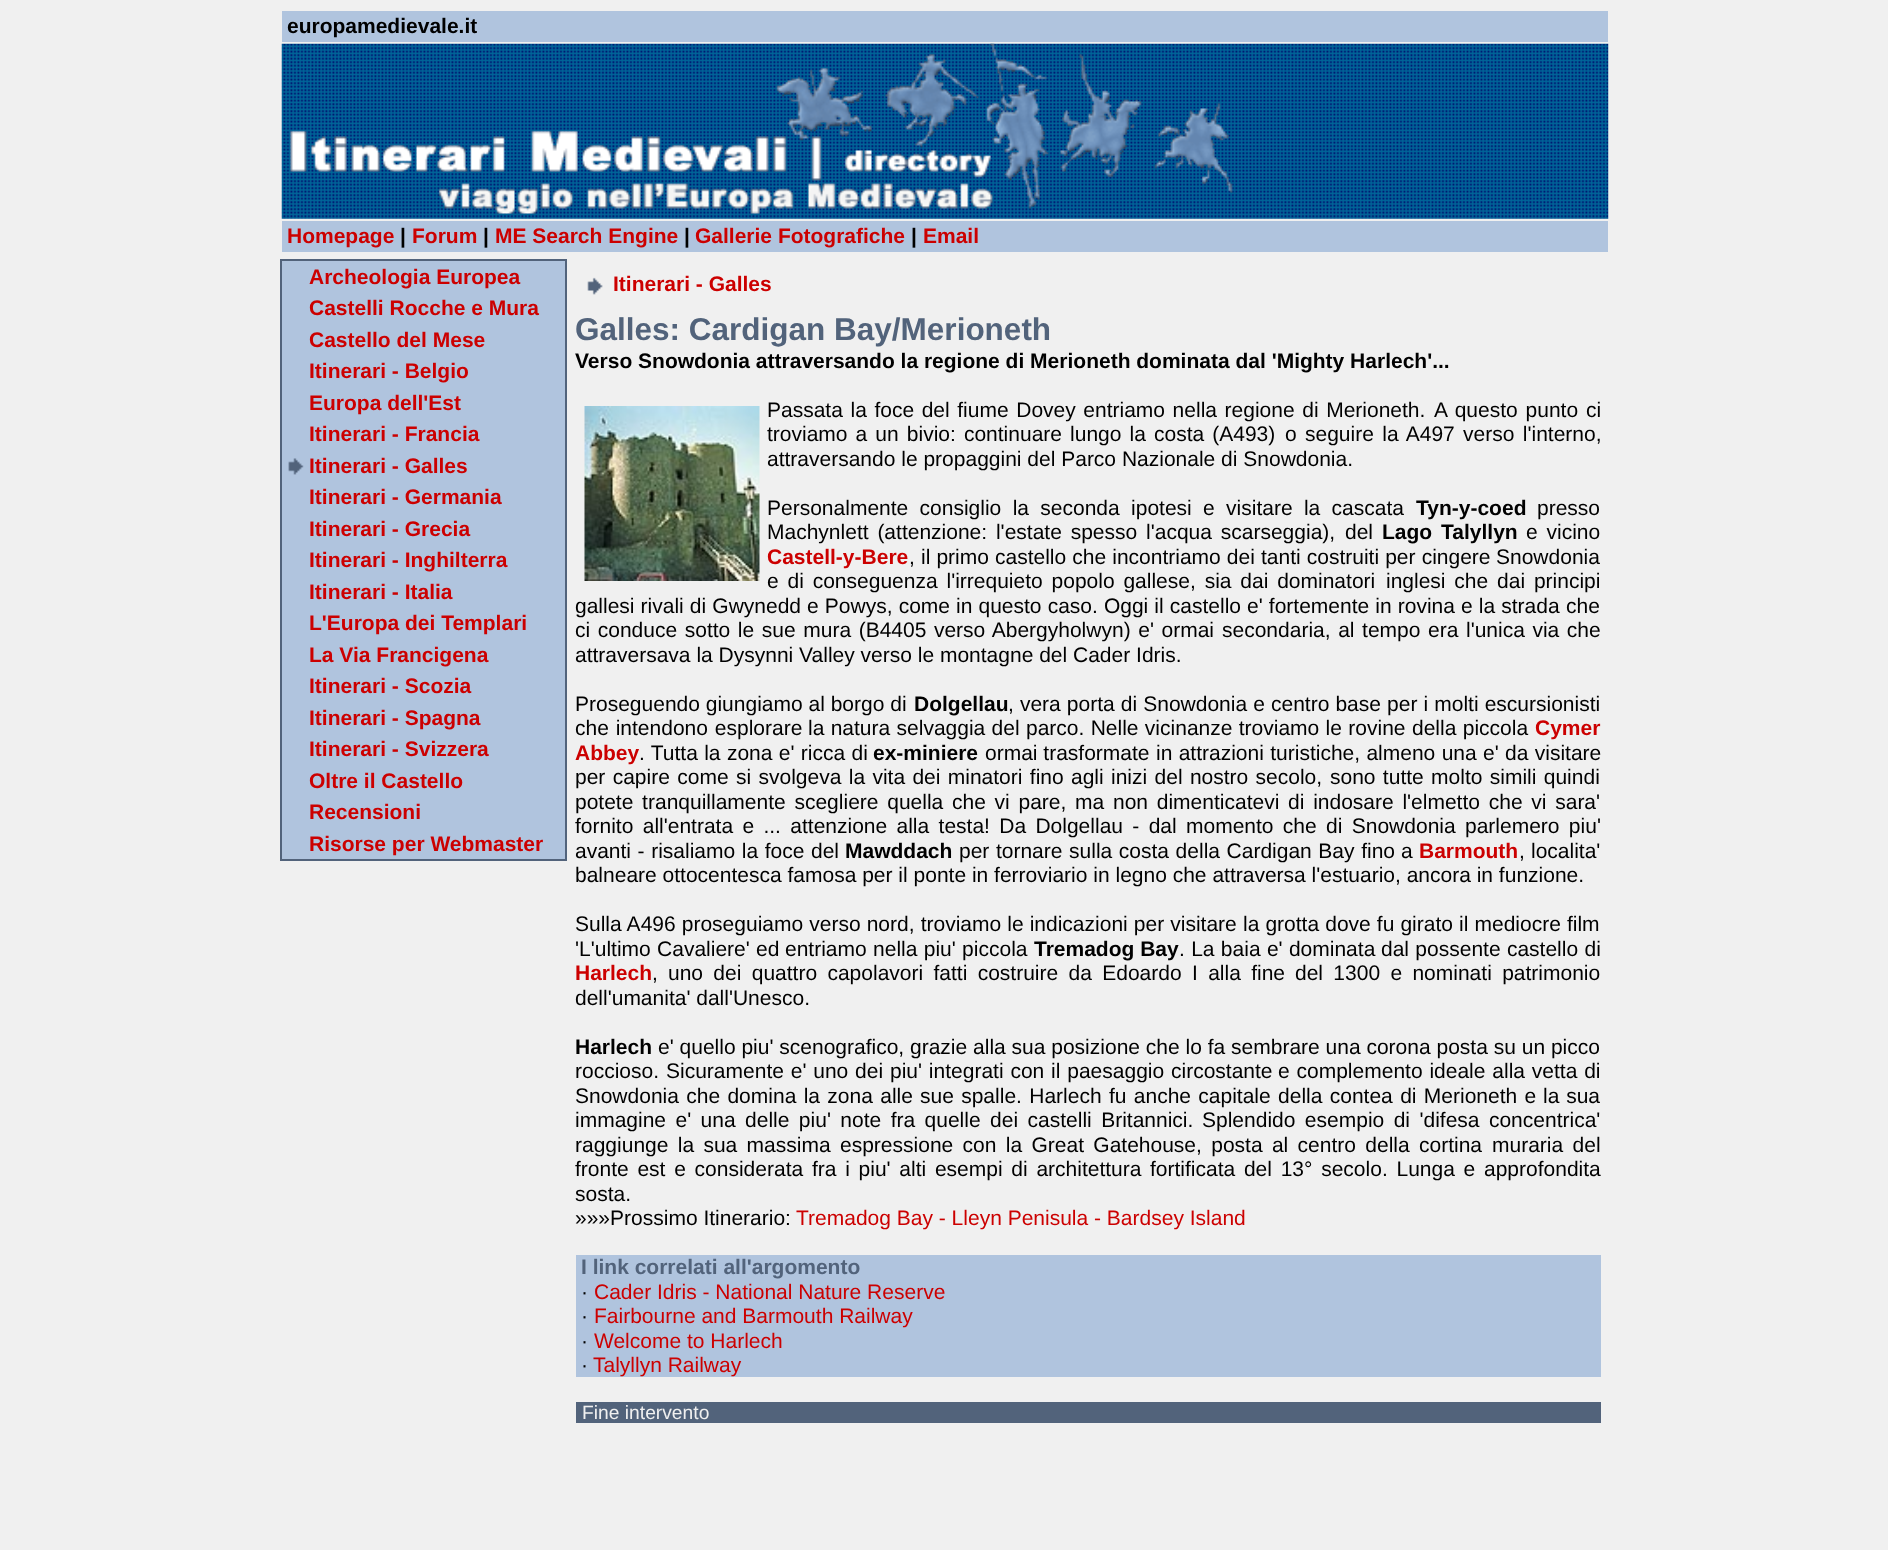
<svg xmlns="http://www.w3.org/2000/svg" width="1888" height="1550">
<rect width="100%" height="100%" fill="#f0f0f0"/>
<rect x="282" y="11" width="1326" height="31" fill="#b0c4de"/>
<text x="287" y="33" style="font-family:Liberation Sans;font-size:21px;font-weight:bold;fill:#000">europamedievale.it</text>
<image x="281" y="43" width="1328" height="176" href="media/1.png"/>
<image x="290" y="43" width="943" height="171" href="media/2.png"/>
<rect x="282" y="221" width="1326" height="31" fill="#b0c4de"/>
<text x="287" y="243" style="font-family:Liberation Sans;font-size:21px;font-weight:bold;fill:#c00">Homepage</text>
<text x="400" y="243" style="font-family:Liberation Sans;font-size:21px;font-weight:bold;fill:#000">|</text>
<text x="412" y="243" style="font-family:Liberation Sans;font-size:21px;font-weight:bold;fill:#c00">Forum</text>
<text x="483" y="243" style="font-family:Liberation Sans;font-size:21px;font-weight:bold;fill:#000">|</text>
<text x="495" y="243" style="font-family:Liberation Sans;font-size:21px;font-weight:bold;fill:#c00">ME Search Engine</text>
<text x="684" y="243" style="font-family:Liberation Sans;font-size:21px;font-weight:bold;fill:#000">|</text>
<text x="695" y="243" style="font-family:Liberation Sans;font-size:21px;font-weight:bold;fill:#c00">Gallerie Fotografiche</text>
<text x="911" y="243" style="font-family:Liberation Sans;font-size:21px;font-weight:bold;fill:#000">|</text>
<text x="923" y="243" style="font-family:Liberation Sans;font-size:21px;font-weight:bold;fill:#c00">Email</text>
<rect x="280" y="259" width="287" height="602" fill="#52637b"/>
<rect x="282" y="261" width="283" height="598" fill="#b0c4de"/>
<text x="309" y="284" style="font-family:Liberation Sans;font-size:21px;font-weight:bold;fill:#c00">Archeologia Europea</text>
<text x="309" y="315" style="font-family:Liberation Sans;font-size:21px;font-weight:bold;fill:#c00">Castelli Rocche e Mura</text>
<text x="309" y="347" style="font-family:Liberation Sans;font-size:21px;font-weight:bold;fill:#c00">Castello del Mese</text>
<text x="309" y="378" style="font-family:Liberation Sans;font-size:21px;font-weight:bold;fill:#c00">Itinerari - Belgio</text>
<text x="309" y="410" style="font-family:Liberation Sans;font-size:21px;font-weight:bold;fill:#c00">Europa dell'Est</text>
<text x="309" y="441" style="font-family:Liberation Sans;font-size:21px;font-weight:bold;fill:#c00">Itinerari - Francia</text>
<image x="288" y="458" width="16" height="17" href="media/3.png"/>
<text x="309" y="473" style="font-family:Liberation Sans;font-size:21px;font-weight:bold;fill:#c00">Itinerari - Galles</text>
<text x="309" y="504" style="font-family:Liberation Sans;font-size:21px;font-weight:bold;fill:#c00">Itinerari - Germania</text>
<text x="309" y="536" style="font-family:Liberation Sans;font-size:21px;font-weight:bold;fill:#c00">Itinerari - Grecia</text>
<text x="309" y="567" style="font-family:Liberation Sans;font-size:21px;font-weight:bold;fill:#c00">Itinerari - Inghilterra</text>
<text x="309" y="599" style="font-family:Liberation Sans;font-size:21px;font-weight:bold;fill:#c00">Itinerari - Italia</text>
<text x="309" y="630" style="font-family:Liberation Sans;font-size:21px;font-weight:bold;fill:#c00">L'Europa dei Templari</text>
<text x="309" y="662" style="font-family:Liberation Sans;font-size:21px;font-weight:bold;fill:#c00">La Via Francigena</text>
<text x="309" y="693" style="font-family:Liberation Sans;font-size:21px;font-weight:bold;fill:#c00">Itinerari - Scozia</text>
<text x="309" y="725" style="font-family:Liberation Sans;font-size:21px;font-weight:bold;fill:#c00">Itinerari - Spagna</text>
<text x="309" y="756" style="font-family:Liberation Sans;font-size:21px;font-weight:bold;fill:#c00">Itinerari - Svizzera</text>
<text x="309" y="788" style="font-family:Liberation Sans;font-size:21px;font-weight:bold;fill:#c00">Oltre il Castello</text>
<text x="309" y="819" style="font-family:Liberation Sans;font-size:21px;font-weight:bold;fill:#c00">Recensioni</text>
<text x="309" y="851" style="font-family:Liberation Sans;font-size:21px;font-weight:bold;fill:#c00">Risorse per Webmaster</text>
<image x="587" y="277" width="16" height="18" href="media/4.png"/>
<text x="613" y="291" style="font-family:Liberation Sans;font-size:21px;font-weight:bold;fill:#c00">Itinerari - Galles</text>
<text x="575" y="340" style="font-family:Liberation Sans;font-size:31.5px;font-weight:bold;fill:#52637b">Galles: Cardigan Bay/Merioneth</text>
<text x="575" y="368" style="font-family:Liberation Sans;font-size:21px;font-weight:bold;fill:#000">Verso Snowdonia attraversando la regione di Merioneth dominata dal 'Mighty Harlech'...</text>
<image x="584" y="406" width="176" height="175" href="media/5.png"/>
<text x="767" y="417" word-spacing="1.75" style="font-family:Liberation Sans;font-size:21px;fill:#000">Passata la foce del fiume Dovey entriamo nella regione di Merioneth.</text>
<text x="1434" y="417" word-spacing="2" style="font-family:Liberation Sans;font-size:21px;fill:#000">A questo punto ci</text>
<text x="767" y="441" word-spacing="2.25" style="font-family:Liberation Sans;font-size:21px;fill:#000">troviamo a un bivio: continuare lungo la costa (A493)</text>
<text x="1285" y="441" word-spacing="2.5" style="font-family:Liberation Sans;font-size:21px;fill:#000">o seguire la A497 verso l'interno,</text>
<text x="767" y="466" style="font-family:Liberation Sans;font-size:21px;fill:#000">attraversando le propaggini del Parco Nazionale di Snowdonia.</text>
<text x="767" y="515" word-spacing="5.5" style="font-family:Liberation Sans;font-size:21px;fill:#000">Personalmente consiglio la seconda ipotesi e visitare la cascata</text>
<text x="1416" y="515" style="font-family:Liberation Sans;font-size:21px;font-weight:bold;fill:#000">Tyn-y-coed</text>
<text x="1537" y="515" style="font-family:Liberation Sans;font-size:21px;fill:#000">presso</text>
<text x="767" y="539" word-spacing="3" style="font-family:Liberation Sans;font-size:21px;fill:#000">Machynlett (attenzione: l'estate spesso l'acqua scarseggia),</text>
<text x="1345" y="539" style="font-family:Liberation Sans;font-size:21px;fill:#000">del</text>
<text x="1382" y="539" word-spacing="3" style="font-family:Liberation Sans;font-size:21px;font-weight:bold;fill:#000">Lago Talyllyn</text>
<text x="1526" y="539" word-spacing="3" style="font-family:Liberation Sans;font-size:21px;fill:#000">e vicino</text>
<text x="767" y="564" style="font-family:Liberation Sans;font-size:21px;font-weight:bold;fill:#c00">Castell-y-Bere</text>
<text x="909" y="564" style="font-family:Liberation Sans;font-size:21px;fill:#000">,</text>
<text x="921" y="564" word-spacing="0.25" style="font-family:Liberation Sans;font-size:21px;fill:#000">il primo castello che incontriamo dei tanti costruiti per cingere</text>
<text x="1496" y="564" style="font-family:Liberation Sans;font-size:21px;fill:#000">Snowdonia</text>
<text x="767" y="588" word-spacing="3" style="font-family:Liberation Sans;font-size:21px;fill:#000">e di conseguenza l'irrequieto popolo gallese, sia dai dominatori</text>
<text x="1386" y="588" word-spacing="3" style="font-family:Liberation Sans;font-size:21px;fill:#000">inglesi che dai principi</text>
<text x="575" y="613" word-spacing="0.25" style="font-family:Liberation Sans;font-size:21px;fill:#000">gallesi rivali di Gwynedd e Powys, come in questo caso. Oggi il castello e' fortemente in rovina e la strada</text>
<text x="1566" y="613" style="font-family:Liberation Sans;font-size:21px;fill:#000">che</text>
<text x="575" y="637" word-spacing="1.75" style="font-family:Liberation Sans;font-size:21px;fill:#000">ci conduce sotto le sue mura (B4405 verso Abergyholwyn) e' ormai</text>
<text x="1222" y="637" word-spacing="1.75" style="font-family:Liberation Sans;font-size:21px;fill:#000">secondaria, al tempo era l'unica via che</text>
<text x="575" y="662" style="font-family:Liberation Sans;font-size:21px;fill:#000">attraversava la Dysynni Valley verso le montagne del Cader Idris.</text>
<text x="575" y="711" style="font-family:Liberation Sans;font-size:21px;fill:#000">Proseguendo giungiamo al borgo di</text>
<text x="914" y="711" style="font-family:Liberation Sans;font-size:21px;font-weight:bold;fill:#000">Dolgellau</text>
<text x="1008" y="711" word-spacing="0.25" style="font-family:Liberation Sans;font-size:21px;fill:#000">, vera porta di Snowdonia e centro base per i molti escursionisti</text>
<text x="575" y="735" word-spacing="1" style="font-family:Liberation Sans;font-size:21px;fill:#000">che intendono esplorare</text>
<text x="808" y="735" word-spacing="0.5" style="font-family:Liberation Sans;font-size:21px;fill:#000">la natura selvaggia del parco. Nelle vicinanze troviamo le rovine</text>
<text x="1412" y="735" word-spacing="0.5" style="font-family:Liberation Sans;font-size:21px;fill:#000">della piccola</text>
<text x="1535" y="735" style="font-family:Liberation Sans;font-size:21px;font-weight:bold;fill:#c00">Cymer</text>
<text x="575" y="760" style="font-family:Liberation Sans;font-size:21px;font-weight:bold;fill:#c00">Abbey</text>
<text x="639" y="760" word-spacing="0.5" style="font-family:Liberation Sans;font-size:21px;fill:#000">. Tutta la zona e' ricca di</text>
<text x="873" y="760" style="font-family:Liberation Sans;font-size:21px;font-weight:bold;fill:#000">ex-miniere</text>
<text x="985" y="760" style="font-family:Liberation Sans;font-size:21px;fill:#000">ormai trasformate</text>
<text x="1156" y="760" word-spacing="0.5" style="font-family:Liberation Sans;font-size:21px;fill:#000">in attrazioni turistiche, almeno una e' da visitare</text>
<text x="575" y="784" word-spacing="1.5" style="font-family:Liberation Sans;font-size:21px;fill:#000">per capire come</text>
<text x="736" y="784" word-spacing="1.5" style="font-family:Liberation Sans;font-size:21px;fill:#000">si svolgeva la vita dei minatori fino agli inizi del nostro secolo,</text>
<text x="1330" y="784" word-spacing="1.5" style="font-family:Liberation Sans;font-size:21px;fill:#000">sono tutte molto simili quindi</text>
<text x="575" y="809" word-spacing="2.9" style="font-family:Liberation Sans;font-size:21px;fill:#000">potete tranquillamente scegliere quella</text>
<text x="952" y="809" word-spacing="2.9" style="font-family:Liberation Sans;font-size:21px;fill:#000">che vi pare, ma non dimenticatevi di indosare l'elmetto che vi sara'</text>
<text x="575" y="833" word-spacing="3.5" style="font-family:Liberation Sans;font-size:21px;fill:#000">fornito all'entrata e ... attenzione alla testa! Da Dolgellau - dal</text>
<text x="1186" y="833" word-spacing="3.5" style="font-family:Liberation Sans;font-size:21px;fill:#000">momento che di Snowdonia parlemero piu'</text>
<text x="575" y="858" word-spacing="0.75" style="font-family:Liberation Sans;font-size:21px;fill:#000">avanti - risaliamo la foce</text>
<text x="811" y="858" style="font-family:Liberation Sans;font-size:21px;fill:#000">del</text>
<text x="845" y="858" style="font-family:Liberation Sans;font-size:21px;font-weight:bold;fill:#000">Mawddach</text>
<text x="959" y="858" word-spacing="0.75" style="font-family:Liberation Sans;font-size:21px;fill:#000">per tornare sulla costa della Cardigan Bay fino</text>
<text x="1401" y="858" style="font-family:Liberation Sans;font-size:21px;fill:#000">a</text>
<text x="1419" y="858" style="font-family:Liberation Sans;font-size:21px;font-weight:bold;fill:#c00">Barmouth</text>
<text x="1519" y="858" style="font-family:Liberation Sans;font-size:21px;fill:#000">,</text>
<text x="1531" y="858" style="font-family:Liberation Sans;font-size:21px;fill:#000">localita'</text>
<text x="575" y="882" style="font-family:Liberation Sans;font-size:21px;fill:#000">balneare ottocentesca famosa per il ponte in ferroviario in legno che attraversa l'estuario, ancora in funzione.</text>
<text x="575" y="931" word-spacing="0.25" style="font-family:Liberation Sans;font-size:21px;fill:#000">Sulla A496 proseguiamo verso nord, troviamo le indicazioni per visitare</text>
<text x="1243" y="931" word-spacing="0.25" style="font-family:Liberation Sans;font-size:21px;fill:#000">la grotta dove fu girato il mediocre film</text>
<text x="575" y="956" word-spacing="0.5" style="font-family:Liberation Sans;font-size:21px;fill:#000">'L'ultimo Cavaliere' ed</text>
<text x="785" y="956" word-spacing="0.5" style="font-family:Liberation Sans;font-size:21px;fill:#000">entriamo nella piu' piccola</text>
<text x="1034" y="956" style="font-family:Liberation Sans;font-size:21px;font-weight:bold;fill:#000">Tremadog Bay</text>
<text x="1179" y="956" word-spacing="0.5" style="font-family:Liberation Sans;font-size:21px;fill:#000">. La baia e' dominata</text>
<text x="1381" y="956" word-spacing="0.5" style="font-family:Liberation Sans;font-size:21px;fill:#000">dal possente castello di</text>
<text x="575" y="980" style="font-family:Liberation Sans;font-size:21px;font-weight:bold;fill:#c00">Harlech</text>
<text x="652" y="980" style="font-family:Liberation Sans;font-size:21px;fill:#000">,</text>
<text x="668" y="980" word-spacing="4.5" style="font-family:Liberation Sans;font-size:21px;fill:#000">uno dei quattro capolavori fatti costruire da Edoardo I alla fine</text>
<text x="1295" y="980" word-spacing="4.5" style="font-family:Liberation Sans;font-size:21px;fill:#000">del 1300 e nominati patrimonio</text>
<text x="575" y="1005" style="font-family:Liberation Sans;font-size:21px;fill:#000">dell'umanita' dall'Unesco.</text>
<text x="575" y="1054" style="font-family:Liberation Sans;font-size:21px;font-weight:bold;fill:#000">Harlech</text>
<text x="658" y="1054" style="font-family:Liberation Sans;font-size:21px;fill:#000">e' quello piu' scenografico, grazie alla sua posizione che lo fa sembrare una corona posta su un picco</text>
<text x="575" y="1078" style="font-family:Liberation Sans;font-size:21px;fill:#000">roccioso.</text>
<text x="666" y="1078" word-spacing="1" style="font-family:Liberation Sans;font-size:21px;fill:#000">Sicuramente e' uno dei piu' integrati con il paesaggio circostante</text>
<text x="1278" y="1078" word-spacing="1" style="font-family:Liberation Sans;font-size:21px;fill:#000">e complemento ideale alla vetta di</text>
<text x="575" y="1103" word-spacing="1.5" style="font-family:Liberation Sans;font-size:21px;fill:#000">Snowdonia che domina la zona alle</text>
<text x="920" y="1103" word-spacing="1.5" style="font-family:Liberation Sans;font-size:21px;fill:#000">sue spalle. Harlech fu anche capitale della contea di Merioneth e</text>
<text x="1543" y="1103" word-spacing="1" style="font-family:Liberation Sans;font-size:21px;fill:#000">la sua</text>
<text x="575" y="1127" word-spacing="3.6" style="font-family:Liberation Sans;font-size:21px;fill:#000">immagine e' una delle piu' note fra quelle dei castelli Britannici.</text>
<text x="1202" y="1127" word-spacing="3.6" style="font-family:Liberation Sans;font-size:21px;fill:#000">Splendido esempio di 'difesa concentrica'</text>
<text x="575" y="1152" word-spacing="3.5" style="font-family:Liberation Sans;font-size:21px;fill:#000">raggiunge la sua massima</text>
<text x="840" y="1152" word-spacing="3.5" style="font-family:Liberation Sans;font-size:21px;fill:#000">espressione con la Great Gatehouse, posta al centro della cortina</text>
<text x="1492" y="1152" word-spacing="3.6" style="font-family:Liberation Sans;font-size:21px;fill:#000">muraria del</text>
<text x="575" y="1176" word-spacing="2.9" style="font-family:Liberation Sans;font-size:21px;fill:#000">fronte est e considerata fra i piu' alti esempi di architettura</text>
<text x="1150" y="1176" word-spacing="2.9" style="font-family:Liberation Sans;font-size:21px;fill:#000">fortificata del 13° secolo. Lunga e approfondita</text>
<text x="575" y="1201" style="font-family:Liberation Sans;font-size:21px;fill:#000">sosta.</text>
<text x="575" y="1225" style="font-family:Liberation Sans;font-size:21px;fill:#000">»»»Prossimo Itinerario:</text>
<text x="796" y="1225" style="font-family:Liberation Sans;font-size:21px;fill:#c00">Tremadog Bay - Lleyn Penisula - Bardsey Island</text>
<rect x="576" y="1255" width="1025" height="122" fill="#b0c4de"/>
<text x="581" y="1274" style="font-family:Liberation Sans;font-size:21px;font-weight:bold;fill:#52637b">I link correlati all'argomento</text>
<text x="581" y="1299" style="font-family:Liberation Sans;font-size:21px;fill:#000">·</text>
<text x="594" y="1299" style="font-family:Liberation Sans;font-size:21px;fill:#c00">Cader Idris - National Nature Reserve</text>
<text x="581" y="1323" style="font-family:Liberation Sans;font-size:21px;fill:#000">·</text>
<text x="594" y="1323" style="font-family:Liberation Sans;font-size:21px;fill:#c00">Fairbourne and Barmouth Railway</text>
<text x="581" y="1348" style="font-family:Liberation Sans;font-size:21px;fill:#000">·</text>
<text x="594" y="1348" style="font-family:Liberation Sans;font-size:21px;fill:#c00">Welcome to Harlech</text>
<text x="581" y="1372" style="font-family:Liberation Sans;font-size:21px;fill:#000">·</text>
<text x="593" y="1372" style="font-family:Liberation Sans;font-size:21px;fill:#c00">Talyllyn Railway</text>
<rect x="576" y="1402" width="1025" height="21" fill="#52637b"/>
<text x="582" y="1419" style="font-family:Liberation Sans;font-size:19.25px;fill:#f0f0f0">Fine intervento</text>
</svg>
